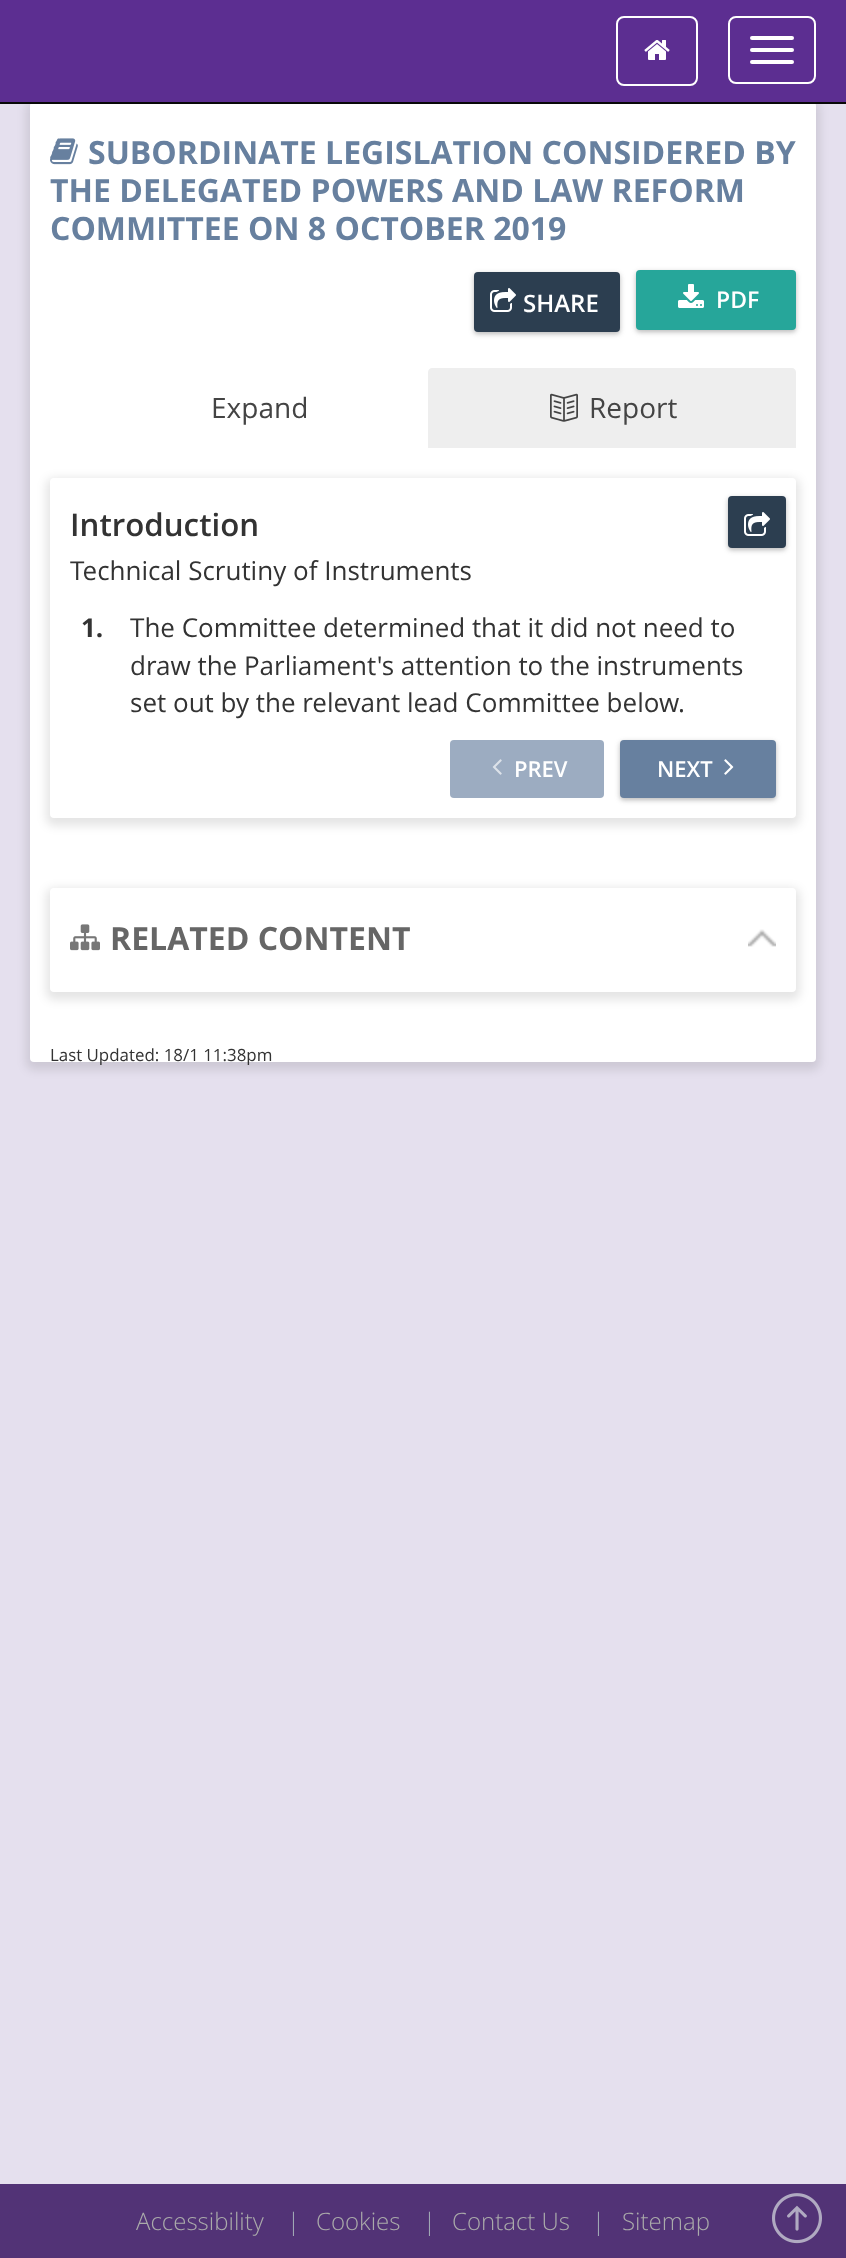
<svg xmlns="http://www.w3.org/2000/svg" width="846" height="2258">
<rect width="100%" height="100%" fill="#e5e0ee"/>
<rect x="26" y="102" width="794" height="968" rx="8" fill="#0000001a" filter="blur(5px)"/>
<rect width="846" height="102" fill="#5c2e91"/>
<rect x="30" y="102" width="786" height="960" rx="4" fill="#fff"/>
<rect y="102" width="846" height="2" fill="#080808"/>
<rect x="617" y="17" width="80" height="68" rx="7" fill="none" stroke="#fff" stroke-width="2"/>
<image x="644" y="40" width="26" height="20" href="media/1.png"/>
<rect x="729" y="17" width="86" height="66" rx="7" fill="none" stroke="#fff" stroke-width="2"/>
<rect x="750" y="36" width="44" height="4" rx="2" fill="#fff"/>
<rect x="750" y="48" width="44" height="4" rx="2" fill="#fff"/>
<rect x="750" y="60" width="44" height="4" rx="2" fill="#fff"/>
<image x="50" y="138" width="28" height="27" href="media/2.png"/>
<text x="88" y="164" style="font-family:Open Sans;font-size:32px;font-weight:bold;fill:#67809f">SUBORDINATE LEGISLATION CONSIDERED BY</text>
<text x="50" y="202" style="font-family:Open Sans;font-size:32px;font-weight:bold;fill:#67809f">THE DELEGATED POWERS AND LAW REFORM</text>
<text x="50" y="240" style="font-family:Open Sans;font-size:32px;font-weight:bold;fill:#67809f">COMMITTEE ON 8 OCTOBER 2019</text>
<rect x="474" y="274" width="146" height="60" rx="4" fill="#0000002e" filter="blur(2px)"/>
<rect x="474" y="274" width="146" height="60" rx="4" fill="#0000001a" filter="blur(3px)"/>
<rect x="474" y="272" width="146" height="60" rx="4" fill="#2c3e50"/>
<image x="490" y="288" width="26" height="24" href="media/3.png"/>
<text x="523" y="312" style="font-family:Open Sans;font-size:24px;font-weight:600;fill:#fff">SHARE</text>
<rect x="636" y="272" width="160" height="60" rx="4" fill="#0000002e" filter="blur(2px)"/>
<rect x="636" y="272" width="160" height="60" rx="4" fill="#0000001a" filter="blur(3px)"/>
<rect x="636" y="270" width="160" height="60" rx="4" fill="#26a69a"/>
<image x="678" y="284" width="26" height="24" href="media/4.png"/>
<text x="716" y="308" style="font-family:Open Sans;font-size:23px;font-weight:600;fill:#fff">PDF</text>
<text x="211" y="418" style="font-family:Open Sans;font-size:28px;fill:#444">Expand</text>
<path d="M432 368h360c2 0 4 2 4 4v76h-368v-76c0-2 2-4 4-4z" fill="#eee"/>
<image x="550" y="393" width="28" height="29" href="media/5.png"/>
<text x="589" y="418" style="font-family:Open Sans;font-size:28px;fill:#444">Report</text>
<rect x="46" y="478" width="754" height="348" rx="8" fill="#0000001a" filter="blur(5px)"/>
<rect x="50" y="478" width="746" height="340" rx="4" fill="#fff"/>
<text x="70" y="536" style="font-family:Open Sans;font-size:31.25px;font-weight:600;fill:#333">Introduction</text>
<text x="70" y="580" style="font-family:Open Sans;font-size:26px;fill:#333">Technical Scrutiny of Instruments</text>
<text x="81" y="637" style="font-family:Open Sans;font-size:26px;font-weight:bold;fill:#333">1.</text>
<text x="130" y="637" style="font-family:Open Sans;font-size:26px;fill:#333">The Committee determined that it did not need to</text>
<text x="130" y="675" style="font-family:Open Sans;font-size:26px;fill:#333">draw the Parliament's attention to the instruments</text>
<text x="130" y="712" style="font-family:Open Sans;font-size:26px;fill:#333">set out by the relevant lead Committee below.</text>
<rect x="728" y="498" width="58" height="52" rx="4" fill="#0000002e" filter="blur(2px)"/>
<rect x="728" y="498" width="58" height="52" rx="4" fill="#0000001a" filter="blur(3px)"/>
<rect x="728" y="496" width="58" height="52" rx="4" fill="#2c3e50"/>
<image x="744" y="512" width="26" height="24" href="media/3.png"/>
<rect x="450" y="740" width="154" height="58" rx="4" fill="#9cacc1"/>
<image x="492" y="759" width="10" height="16" href="media/6.png"/>
<text x="514" y="777" style="font-family:Open Sans;font-size:22px;font-weight:600;fill:#fff">PREV</text>
<rect x="620" y="742" width="156" height="58" rx="4" fill="#0000002e" filter="blur(2px)"/>
<rect x="620" y="742" width="156" height="58" rx="4" fill="#0000001a" filter="blur(3px)"/>
<rect x="620" y="740" width="156" height="58" rx="4" fill="#67809f"/>
<text x="657" y="777" style="font-family:Open Sans;font-size:22px;font-weight:600;fill:#fff">NEXT</text>
<image x="724" y="759" width="10" height="16" href="media/7.png"/>
<rect x="46" y="888" width="754" height="112" rx="8" fill="#0000001a" filter="blur(5px)"/>
<rect x="50" y="888" width="746" height="104" rx="4" fill="#fff"/>
<image x="70" y="924" width="30" height="27" href="media/8.png"/>
<text x="110" y="950" style="font-family:Open Sans;font-size:32px;font-weight:bold;fill:#666">RELATED CONTENT</text>
<image x="748" y="929" width="28" height="18" href="media/9.png"/>
<text x="50" y="1061" style="font-family:Open Sans;font-size:16.9px;fill:#333">Last Updated: 18/1 11:38pm</text>
<rect y="2184" width="846" height="74" fill="#523376"/>
<text x="136" y="2230" style="font-family:Open Sans;font-size:24px;font-weight:300;fill:#aaa">Accessibility</text>
<text x="287" y="2230" style="font-family:Open Sans;font-size:24px;font-weight:300;fill:#a2abb7">|</text>
<text x="316" y="2230" style="font-family:Open Sans;font-size:24px;font-weight:300;fill:#aaa">Cookies</text>
<text x="423" y="2230" style="font-family:Open Sans;font-size:24px;font-weight:300;fill:#a2abb7">|</text>
<text x="452" y="2230" style="font-family:Open Sans;font-size:24px;font-weight:300;fill:#aaa">Contact Us</text>
<text x="592" y="2230" style="font-family:Open Sans;font-size:24px;font-weight:300;fill:#a2abb7">|</text>
<text x="622" y="2230" style="font-family:Open Sans;font-size:24px;font-weight:300;fill:#aaa">Sitemap</text>
<image x="772" y="2193" width="50" height="51" href="media/10.png"/>
</svg>
